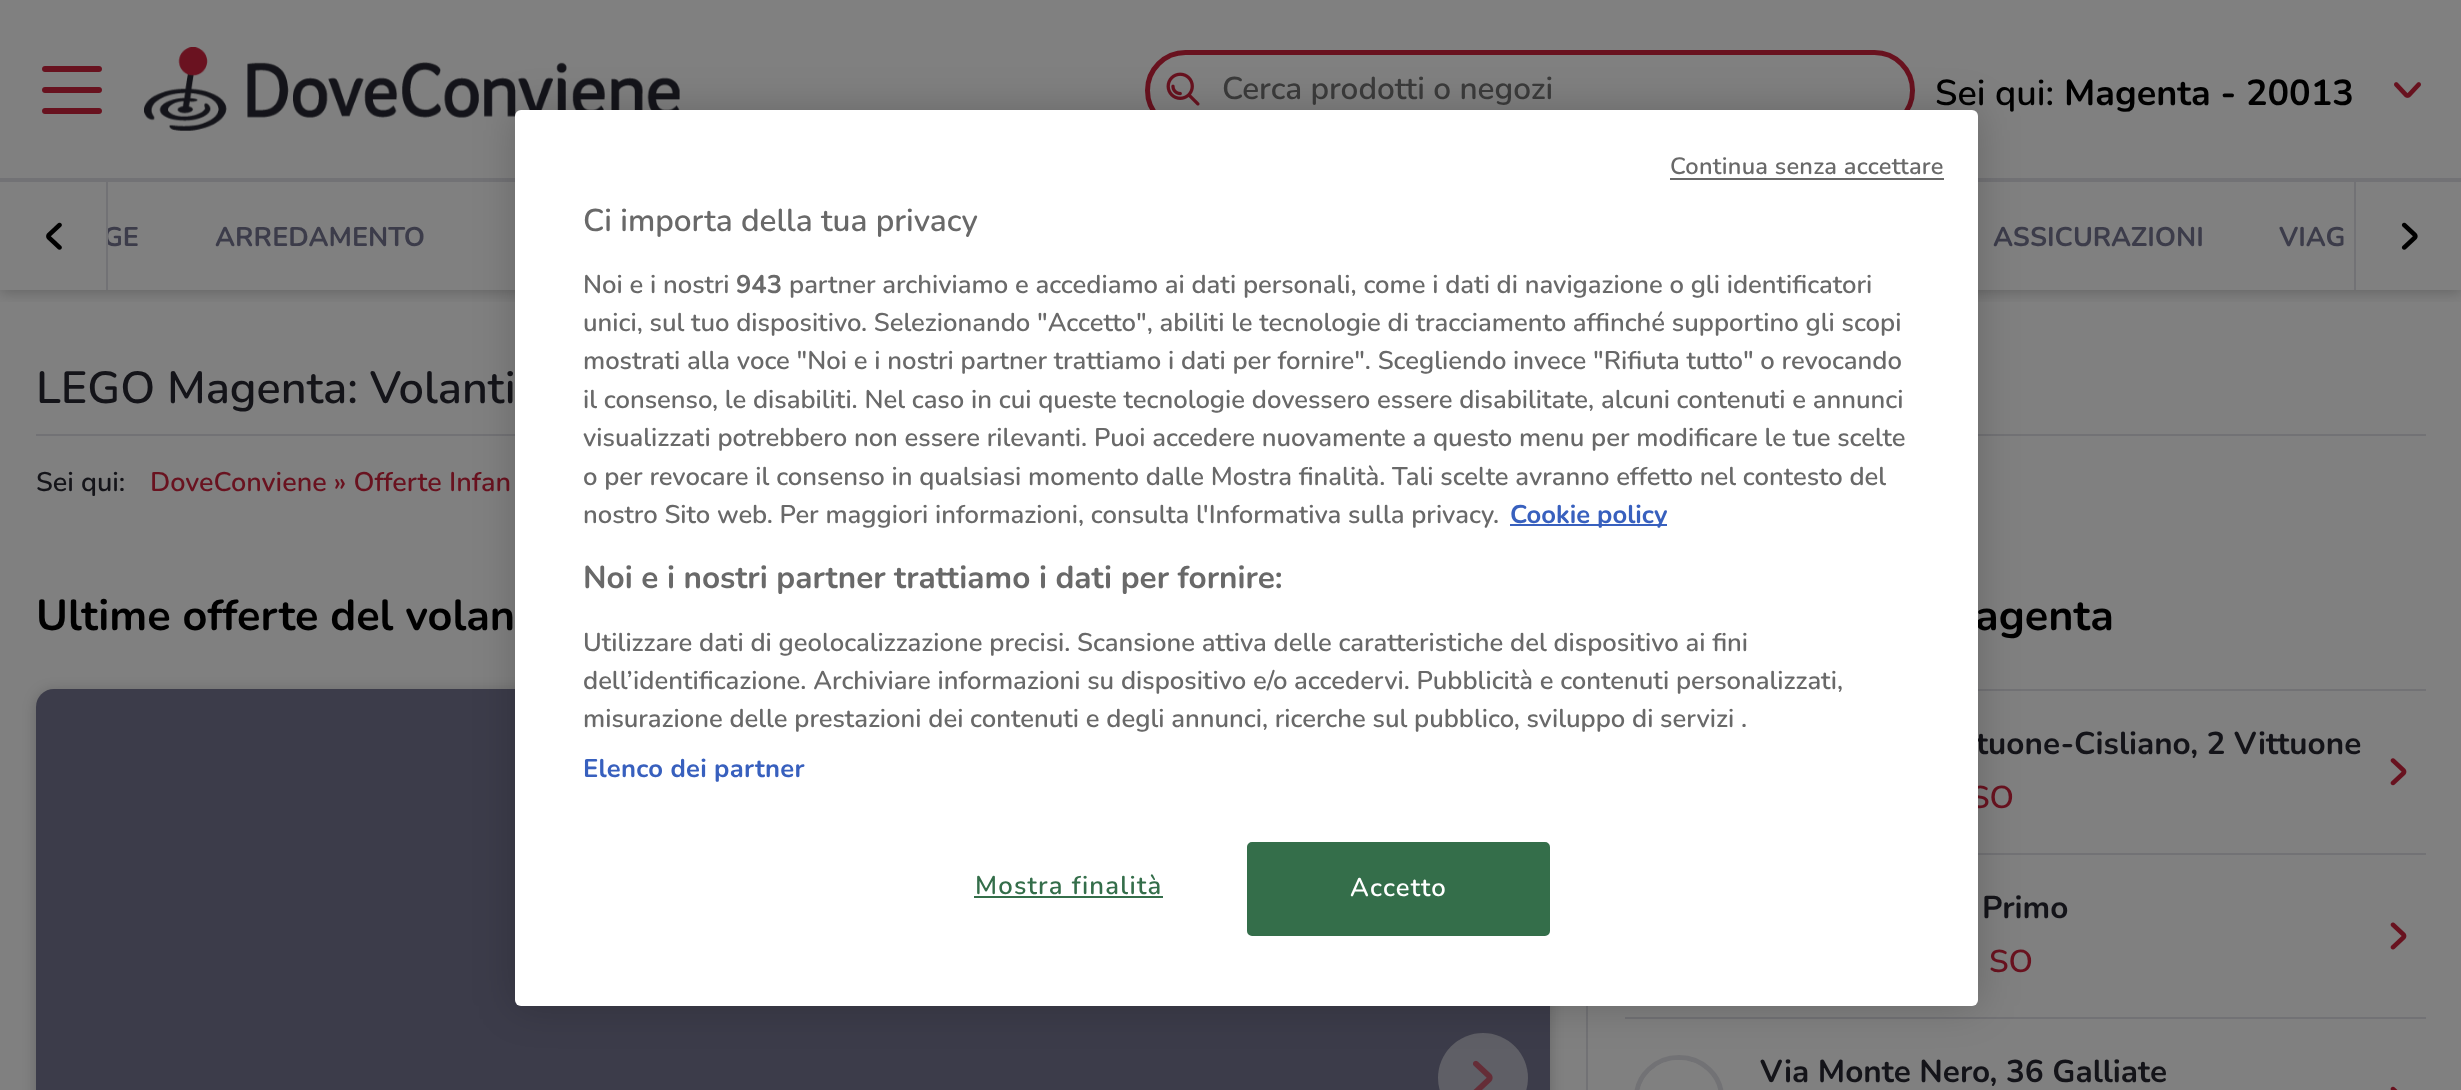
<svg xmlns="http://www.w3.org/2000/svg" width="2461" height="1090">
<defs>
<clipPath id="clip1"><rect x="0" y="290" width="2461" height="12"/></clipPath>
<clipPath id="clip2"><rect x="108" y="200" width="2246" height="75"/></clipPath>
</defs>
<rect width="100%" height="100%" fill="#808080"/>
<g clip-path="url(#clip1)">
<rect y="2" width="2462" height="291" fill="#00000033" filter="blur(7px)"/>
</g>
<image x="42" y="66" width="60" height="48" href="media/1.png"/>
<image x="144" y="47" width="536" height="84" href="media/2.png"/>
<rect x="1147.5" y="52.5" width="765" height="76" rx="38" fill="none" stroke="#69121f" stroke-width="5"/>
<image x="1166" y="72" width="34" height="34" href="media/3.png"/>
<text x="1222" y="99" style="font-family:Nunito;font-size:31.5px;font-weight:600;fill:#3b3b3b">Cerca prodotti o negozi</text>
<text x="1935" y="105" style="font-family:Nunito;font-size:36px;font-weight:600;fill:#000">Sei qui:</text>
<text x="2064" y="105" style="font-family:Nunito;font-size:36px;font-weight:bold;fill:#000">Magenta - 20013</text>
<image x="2394" y="82" width="27" height="16" href="media/4.png"/>
<rect y="178" width="2461" height="4" fill="#727275"/>
<rect x="106" y="182" width="2" height="108" fill="#727275"/>
<image x="46" y="222" width="16" height="28" href="media/5.png"/>
<g clip-path="url(#clip2)">
<text x="103" y="246" style="font-family:Nunito;font-size:27px;font-weight:bold;fill:#3c3c4a">GE</text>
</g>
<text x="215" y="246" style="font-family:Nunito;font-size:27px;font-weight:bold;fill:#3c3c4a">ARREDAMENTO</text>
<text x="1993" y="246" style="font-family:Nunito;font-size:27px;font-weight:bold;fill:#3c3c4a">ASSICURAZIONI</text>
<text x="2279" y="246" style="font-family:Nunito;font-size:27px;font-weight:bold;fill:#3c3c4a">VIAG</text>
<rect x="2354" y="182" width="2" height="108" fill="#727275"/>
<image x="2401" y="222" width="17" height="28" href="media/6.png"/>
<rect x="36" y="434" width="2390" height="2" fill="#727275"/>
<text x="36" y="403" style="font-family:Nunito;font-size:45px;font-weight:600;fill:#141419">LEGO Magenta: Volanti</text>
<text x="36" y="491" style="font-family:Nunito;font-size:27px;font-weight:600;fill:#141419">Sei qui:</text>
<text x="150" y="491" style="font-family:Nunito;font-size:27px;font-weight:600;fill:#69121f">DoveConviene » Offerte Infan</text>
<rect x="1586" y="1006" width="2" height="84" fill="#727275"/>
<text x="36" y="630" style="font-family:Nunito;font-size:43.25px;font-weight:bold;fill:#000">Ultime offerte del volan</text>
<rect x="36" y="691" width="1514" height="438" rx="18" fill="#00000033" filter="blur(7px)"/>
<rect x="36" y="689" width="1514" height="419" rx="18" fill="#3c3c4a"/>
<circle cx="1483" cy="1078" r="45" fill="#5f5f66"/>
<image x="1473" y="1060" width="20" height="30" href="media/7.png"/>
<text x="1975" y="630" style="font-family:Nunito;font-size:43.25px;font-weight:bold;fill:#000">agenta</text>
<rect x="1978" y="689" width="448" height="2" fill="#727275"/>
<rect x="1978" y="853" width="448" height="2" fill="#727275"/>
<text x="1976" y="754" style="font-family:Nunito;font-size:31.5px;font-weight:bold;fill:#141419">tuone-Cisliano, 2 Vittuone</text>
<text x="1970" y="808" style="font-family:Nunito;font-size:31.5px;font-weight:600;fill:#69121f">SO</text>
<image x="2390" y="758" width="17" height="28" href="media/8.png"/>
<rect x="1625" y="1017" width="801" height="2" fill="#727275"/>
<text x="1982" y="918" style="font-family:Nunito;font-size:31.5px;font-weight:bold;fill:#141419">Primo</text>
<text x="1989" y="972" style="font-family:Nunito;font-size:31.5px;font-weight:600;fill:#69121f">SO</text>
<image x="2390" y="922" width="17" height="28" href="media/9.png"/>
<rect x="1636.5" y="1057.5" width="85" height="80" rx="42.5" fill="none" stroke="#727275" stroke-width="5"/>
<image x="1639" y="1060" width="79" height="30" href="media/10.png"/>
<text x="1760" y="1082" style="font-family:Nunito;font-size:31.5px;font-weight:bold;fill:#141419">Via Monte Nero, 36 Galliate</text>
<image x="2390" y="1086" width="8" height="4" href="media/11.png"/>
<rect x="515" y="110" width="1463" height="896" rx="6" fill="#00000033" filter="blur(20px)"/>
<rect x="515" y="110" width="1463" height="896" rx="6" fill="#fff"/>
<text x="1670" y="174" style="font-family:Nunito;font-size:23.6px;font-weight:600;letter-spacing:0.25px;fill:#696969">Continua senza accettare</text>
<rect x="1670" y="178" width="274" height="2" fill="#696969"/>
<text x="583" y="231" style="font-family:Nunito;font-size:31.5px;font-weight:600;fill:#696969">Ci importa della tua privacy</text>
<text x="583" y="293" style="font-family:Nunito;font-size:25.6px;font-weight:600;fill:#696969">Noi e i nostri</text>
<text x="736" y="293" style="font-family:Nunito;font-size:25.6px;font-weight:bold;fill:#696969">943</text>
<text x="789" y="293" style="font-family:Nunito;font-size:25.6px;font-weight:600;fill:#696969">partner archiviamo e accediamo ai dati personali, come i dati di navigazione o gli identificatori</text>
<text x="583" y="331" style="font-family:Nunito;font-size:25.6px;font-weight:600;fill:#696969">unici, sul tuo dispositivo. Selezionando "Accetto", abiliti le tecnologie di tracciamento affinché supportino gli scopi</text>
<text x="583" y="369" style="font-family:Nunito;font-size:25.6px;font-weight:600;fill:#696969">mostrati alla voce "Noi e i nostri partner trattiamo i dati per fornire". Scegliendo invece "Rifiuta tutto" o revocando</text>
<text x="583" y="408" style="font-family:Nunito;font-size:25.6px;font-weight:600;fill:#696969">il consenso, le disabiliti. Nel caso in cui queste tecnologie dovessero essere disabilitate, alcuni contenuti e annunci</text>
<text x="583" y="446" style="font-family:Nunito;font-size:25.6px;font-weight:600;fill:#696969">visualizzati potrebbero non essere rilevanti. Puoi accedere nuovamente a questo menu per modificare le tue scelte</text>
<text x="583" y="485" style="font-family:Nunito;font-size:25.6px;font-weight:600;fill:#696969">o per revocare il consenso in qualsiasi momento dalle Mostra finalità. Tali scelte avranno effetto nel contesto del</text>
<text x="583" y="523" style="font-family:Nunito;font-size:25.6px;font-weight:600;fill:#696969">nostro Sito web. Per maggiori informazioni, consulta l'Informativa sulla privacy.</text>
<rect x="1510" y="524" width="157" height="2" fill="#3860be"/>
<text x="1510" y="523" style="font-family:Nunito;font-size:25.6px;font-weight:bold;fill:#3860be">Cookie policy</text>
<text x="583" y="588" style="font-family:Nunito;font-size:31.5px;font-weight:bold;fill:#696969">Noi e i nostri partner trattiamo i dati per fornire:</text>
<text x="583" y="651" style="font-family:Nunito;font-size:25.6px;font-weight:600;fill:#696969">Utilizzare dati di geolocalizzazione precisi. Scansione attiva delle caratteristiche del dispositivo ai fini</text>
<text x="583" y="689" style="font-family:Nunito;font-size:25.6px;font-weight:600;fill:#696969">dell’identificazione. Archiviare informazioni su dispositivo e/o accedervi. Pubblicità e contenuti personalizzati,</text>
<text x="583" y="727" style="font-family:Nunito;font-size:25.6px;font-weight:600;fill:#696969">misurazione delle prestazioni dei contenuti e degli annunci, ricerche sul pubblico, sviluppo di servizi .</text>
<text x="583" y="777" style="font-family:Nunito;font-size:25.6px;font-weight:bold;letter-spacing:0.25px;fill:#3860be">Elenco dei partner</text>
<text x="975" y="894" style="font-family:Nunito;font-size:25.6px;font-weight:600;letter-spacing:1.25px;fill:#346e4a">Mostra finalità</text>
<rect x="974" y="896" width="189" height="2" fill="#346e4a"/>
<rect x="1248" y="843" width="301" height="92" rx="4" fill="#346e4a" stroke="#346e4a" stroke-width="2"/>
<text x="1350" y="896" style="font-family:Nunito;font-size:25.6px;font-weight:600;letter-spacing:1.25px;fill:#fff">Accetto</text>
</svg>
